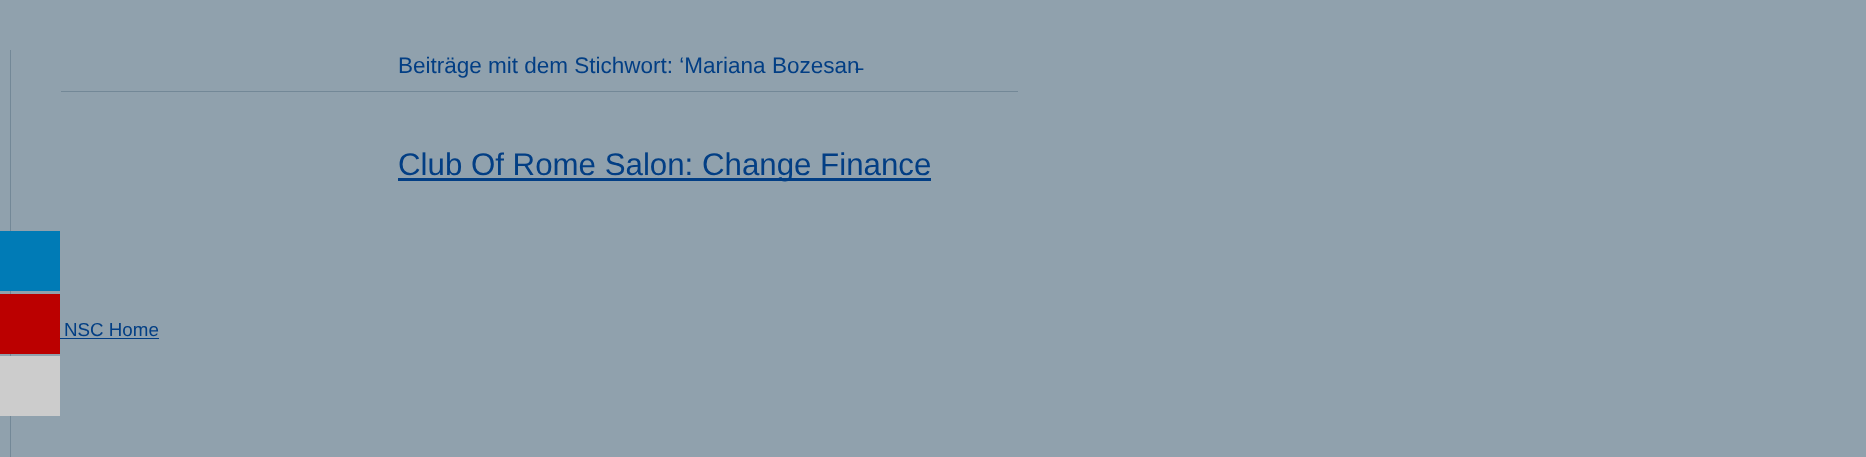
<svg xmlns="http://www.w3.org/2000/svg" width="1866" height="457">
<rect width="100%" height="100%" fill="#90a1ad"/>
<rect x="10" y="50" width="1" height="407" fill="#738897"/>
<rect y="231" width="60" height="60" fill="#007bb6"/>
<rect y="294" width="60" height="60" fill="#b00"/>
<rect y="356" width="60" height="60" fill="#ccc"/>
<rect x="61" y="91" width="957" height="1" fill="#738897"/>
<text x="398" y="73" style="font-family:Liberation Sans;font-size:22.5px;fill:#023e84">Beiträge mit dem Stichwort: ‘Mariana Bozesan̵</text>
<rect x="398" y="178" width="533" height="3" fill="#023e84"/>
<text x="398" y="175" style="font-family:Liberation Sans;font-size:31.25px;fill:#023e84">Club Of Rome Salon: Change Finance</text>
<text x="64" y="336" style="font-family:Liberation Sans;font-size:18.75px;fill:#023e84">NSC Home</text>
<rect x="60" y="338" width="99" height="1" fill="#023e84"/>
</svg>
